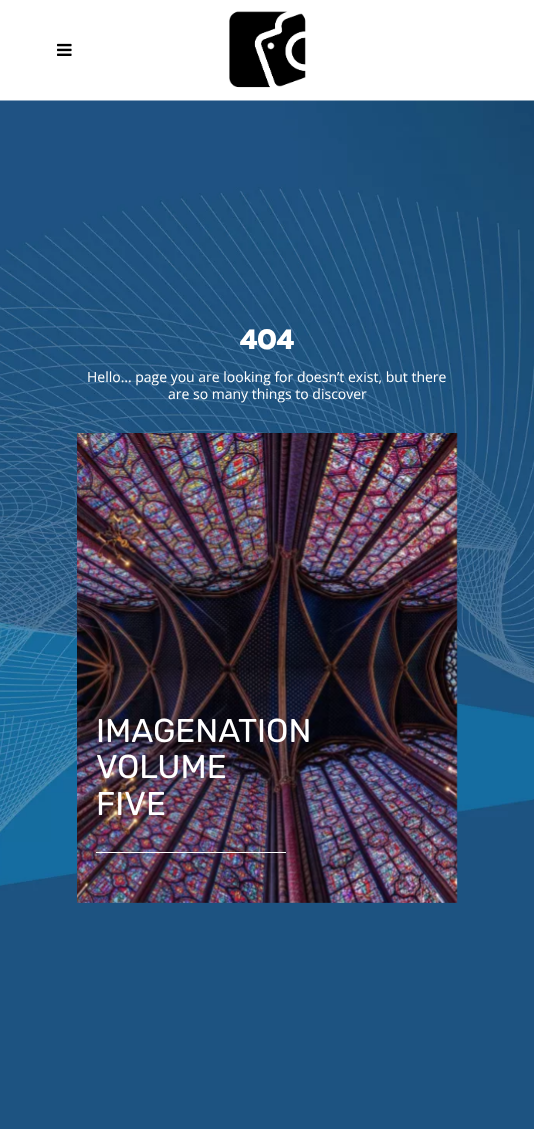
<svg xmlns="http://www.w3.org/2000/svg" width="534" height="1129">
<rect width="100%" height="100%" fill="#fff"/>
<image x="57" y="43" width="15" height="13" href="media/1.png"/>
<image x="229" y="11" width="77" height="77" href="media/2.png"/>
<image x="0" y="100" width="534" height="1029" href="media/3.png"/>
<text x="240" y="349" style="font-family:Prompt;font-size:28px;font-weight:bold;fill:#fff">404</text>
<text x="87" y="382" style="font-family:Open Sans;font-size:14px;fill:#fff">Hello… page you are looking for doesn’t exist, but there</text>
<text x="168" y="399" style="font-family:Open Sans;font-size:14px;fill:#fff">are so many things to discover</text>
<image x="77" y="433" width="381" height="470" href="media/4.png"/>
<rect x="96" y="852" width="190" height="1" fill="#fff"/>
<text x="96" y="742" style="font-family:Rubik;font-size:33px;fill:#fff">IMAGENATION</text>
<text x="96" y="778" style="font-family:Rubik;font-size:33px;fill:#fff">VOLUME</text>
<text x="96" y="815" style="font-family:Rubik;font-size:33px;fill:#fff">FIVE</text>
</svg>
